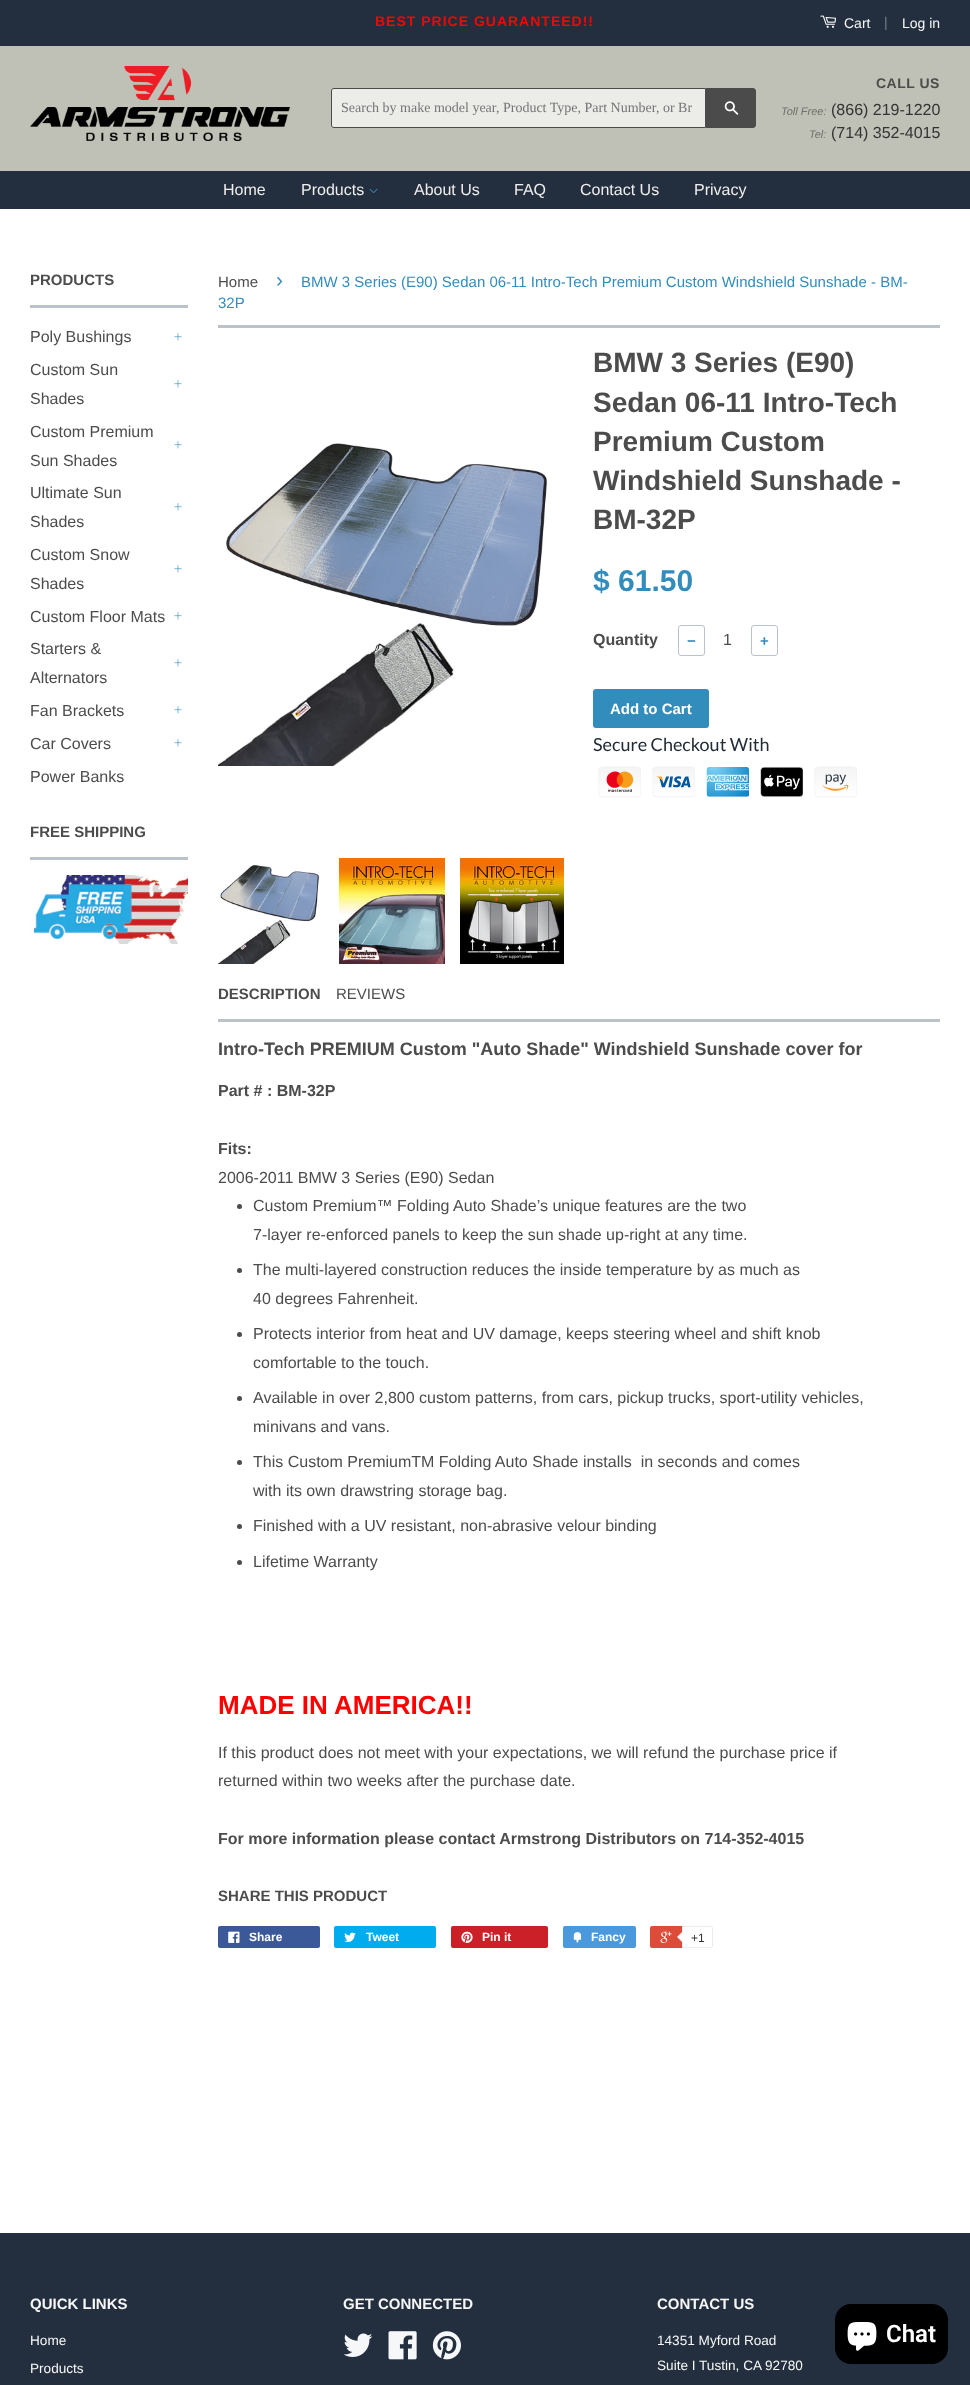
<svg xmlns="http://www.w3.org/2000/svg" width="970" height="2385">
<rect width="100%" height="100%" fill="#fff"/>
<rect width="970" height="46" fill="#232f3e"/>
<text x="375" y="26" style="font-family:Liberation Sans;font-size:14px;font-weight:bold;letter-spacing:1px;fill:#f50404">BEST PRICE GUARANTEED!!</text>
<image x="820" y="15" width="17" height="13" href="media/1.png"/>
<text x="844" y="28" style="font-family:Liberation Sans;font-size:14px;fill:#f7f7f7">Cart</text>
<text x="884" y="27" style="font-family:Liberation Sans;font-size:14px;fill:#787f88">|</text>
<text x="902" y="28" style="font-family:Liberation Sans;font-size:14px;fill:#f7f7f7">Log in</text>
<rect y="46" width="970" height="125" fill="#c0c1b6"/>
<image x="30" y="66" width="260" height="75" href="media/2.png"/>
<path d="M334 88.5h371.5v39h-371.5c-1.5 0-2.5-1-2.5-2.5v-34c0-1.5 1-2.5 2.5-2.5z" fill="#ecece9" stroke="#4b4b4b"/>
<text x="341" y="112" style="font-family:Liberation Serif;font-size:14px;fill:#757575">Search by make model year, Product Type, Part Number, or Br</text>
<path d="M706 88h47c1.5 0 3 1.5 3 3v34c0 1.5-1.5 3-3 3h-47z" fill="#4b4b4b"/>
<image x="724" y="101" width="15" height="14" href="media/3.png"/>
<text x="876" y="88" style="font-family:Liberation Sans;font-size:14px;font-weight:bold;letter-spacing:0.5px;fill:#4c4c4c">CALL US</text>
<text x="781" y="115" style="font-family:Liberation Sans;font-size:11px;font-style:italic;fill:#6f6f6c">Toll Free:</text>
<text x="831" y="115" style="font-family:Liberation Sans;font-size:16px;fill:#333">(866) 219-1220</text>
<text x="809" y="138" style="font-family:Liberation Sans;font-size:11px;font-style:italic;fill:#6f6f6c">Tel:</text>
<text x="831" y="138" style="font-family:Liberation Sans;font-size:16px;fill:#333">(714) 352-4015</text>
<rect y="171" width="970" height="38" fill="#232f3e"/>
<text x="223" y="195" style="font-family:Liberation Sans;font-size:16px;fill:#f0eded">Home</text>
<text x="301" y="195" style="font-family:Liberation Sans;font-size:16px;fill:#f0eded">Products</text>
<image x="369" y="188" width="9" height="5" href="media/4.png"/>
<text x="414" y="195" style="font-family:Liberation Sans;font-size:16px;fill:#f0eded">About Us</text>
<text x="514" y="195" style="font-family:Liberation Sans;font-size:16px;fill:#f0eded">FAQ</text>
<text x="580" y="195" style="font-family:Liberation Sans;font-size:16px;fill:#f0eded">Contact Us</text>
<text x="694" y="195" style="font-family:Liberation Sans;font-size:16px;fill:#f0eded">Privacy</text>
<rect x="30" y="305" width="158" height="3" fill="#bcc2ca"/>
<text x="30" y="285" style="font-family:Liberation Sans;font-size:15px;font-weight:bold;fill:#4c4c4c">PRODUCTS</text>
<text x="30" y="342" style="font-family:Liberation Sans;font-size:16px;fill:#4c4c4c">Poly Bushings</text>
<image x="174" y="333" width="8" height="8" href="media/5.png"/>
<text x="30" y="375" style="font-family:Liberation Sans;font-size:16px;fill:#4c4c4c">Custom Sun</text>
<text x="30" y="404" style="font-family:Liberation Sans;font-size:16px;fill:#4c4c4c">Shades</text>
<image x="174" y="380" width="8" height="8" href="media/5.png"/>
<text x="30" y="437" style="font-family:Liberation Sans;font-size:16px;fill:#4c4c4c">Custom Premium</text>
<text x="30" y="466" style="font-family:Liberation Sans;font-size:16px;fill:#4c4c4c">Sun Shades</text>
<image x="174" y="441" width="8" height="8" href="media/5.png"/>
<text x="30" y="498" style="font-family:Liberation Sans;font-size:16px;fill:#4c4c4c">Ultimate Sun</text>
<text x="30" y="527" style="font-family:Liberation Sans;font-size:16px;fill:#4c4c4c">Shades</text>
<image x="174" y="503" width="8" height="8" href="media/5.png"/>
<text x="30" y="560" style="font-family:Liberation Sans;font-size:16px;fill:#4c4c4c">Custom Snow</text>
<text x="30" y="589" style="font-family:Liberation Sans;font-size:16px;fill:#4c4c4c">Shades</text>
<image x="174" y="565" width="8" height="8" href="media/5.png"/>
<text x="30" y="622" style="font-family:Liberation Sans;font-size:16px;fill:#4c4c4c">Custom Floor Mats</text>
<image x="174" y="612" width="8" height="8" href="media/5.png"/>
<text x="30" y="654" style="font-family:Liberation Sans;font-size:16px;fill:#4c4c4c">Starters &amp;</text>
<text x="30" y="683" style="font-family:Liberation Sans;font-size:16px;fill:#4c4c4c">Alternators</text>
<image x="174" y="659" width="8" height="8" href="media/5.png"/>
<text x="30" y="716" style="font-family:Liberation Sans;font-size:16px;fill:#4c4c4c">Fan Brackets</text>
<image x="174" y="706" width="8" height="8" href="media/5.png"/>
<text x="30" y="749" style="font-family:Liberation Sans;font-size:16px;fill:#4c4c4c">Car Covers</text>
<image x="174" y="739" width="8" height="8" href="media/5.png"/>
<text x="30" y="782" style="font-family:Liberation Sans;font-size:16px;fill:#4c4c4c">Power Banks</text>
<rect x="30" y="857" width="158" height="3" fill="#bcc2ca"/>
<text x="30" y="837" style="font-family:Liberation Sans;font-size:15px;font-weight:bold;fill:#4c4c4c">FREE SHIPPING</text>
<image x="30" y="875" width="158" height="69" href="media/6.png"/>
<rect x="218" y="325" width="722" height="3" fill="#bcc2ca"/>
<text x="218" y="287" style="font-family:Liberation Sans;font-size:15px;fill:#4c4c4c">Home</text>
<text x="276" y="287" style="font-family:Liberation Sans;font-size:21px;fill:#338dbc">›</text>
<text x="301" y="287" style="font-family:Liberation Sans;font-size:15px;fill:#338dbc">BMW 3 Series (E90) Sedan 06-11 Intro-Tech Premium Custom Windshield Sunshade - BM-</text>
<text x="218" y="308" style="font-family:Liberation Sans;font-size:15px;fill:#338dbc">32P</text>
<image x="218" y="443" width="330" height="323" href="media/7.png"/>
<text x="593" y="372" style="font-family:Liberation Sans;font-size:28px;font-weight:bold;fill:#4c4c4c">BMW 3 Series (E90)</text>
<text x="593" y="412" style="font-family:Liberation Sans;font-size:28px;font-weight:bold;fill:#4c4c4c">Sedan 06-11 Intro-Tech</text>
<text x="593" y="451" style="font-family:Liberation Sans;font-size:28px;font-weight:bold;fill:#4c4c4c">Premium Custom</text>
<text x="593" y="490" style="font-family:Liberation Sans;font-size:28px;font-weight:bold;fill:#4c4c4c">Windshield Sunshade -</text>
<text x="593" y="529" style="font-family:Liberation Sans;font-size:28px;font-weight:bold;fill:#4c4c4c">BM-32P</text>
<text x="593" y="591" style="font-family:Liberation Sans;font-size:30px;font-weight:bold;fill:#338dbc">$ 61.50</text>
<text x="593" y="645" style="font-family:Liberation Sans;font-size:16px;font-weight:bold;fill:#4c4c4c">Quantity</text>
<rect x="678.5" y="625.5" width="26" height="30" rx="2.5" fill="none" stroke="#bcc2ca"/>
<text x="687" y="646" style="font-family:Liberation Sans;font-size:15px;font-weight:bold;fill:#338dbc">−</text>
<text x="723" y="645" style="font-family:Liberation Sans;font-size:16px;fill:#4c4c4c">1</text>
<rect x="751.5" y="625.5" width="26" height="30" rx="2.5" fill="none" stroke="#bcc2ca"/>
<text x="760" y="646" style="font-family:Liberation Sans;font-size:15px;font-weight:bold;fill:#338dbc">+</text>
<rect x="593" y="689" width="116" height="39" rx="3" fill="#338dbc"/>
<text x="610" y="714" style="font-family:Liberation Sans;font-size:15px;font-weight:bold;fill:#fff">Add to Cart</text>
<image x="593" y="737" width="264" height="61" href="media/8.png"/>
<image x="179" y="903" width="5" height="13" href="media/9.png"/>
<image x="218" y="864" width="102" height="100" href="media/10.png"/>
<image x="339" y="858" width="106" height="106" href="media/11.png"/>
<image x="460" y="858" width="104" height="106" href="media/12.png"/>
<rect x="218" y="1019" width="722" height="3" fill="#bcc2ca"/>
<text x="218" y="999" style="font-family:Liberation Sans;font-size:15px;font-weight:bold;fill:#4c4c4c">DESCRIPTION</text>
<text x="336" y="999" style="font-family:Liberation Sans;font-size:15px;fill:#4c4c4c">REVIEWS</text>
<text x="218" y="1055" style="font-family:Liberation Sans;font-size:18px;font-weight:bold;fill:#4c4c4c">Intro-Tech PREMIUM Custom "Auto Shade" Windshield Sunshade cover for</text>
<text x="218" y="1096" style="font-family:Liberation Sans;font-size:16px;font-weight:bold;fill:#4c4c4c">Part # : BM-32P</text>
<text x="218" y="1154" style="font-family:Liberation Sans;font-size:16px;font-weight:bold;fill:#4c4c4c">Fits:</text>
<text x="218" y="1183" style="font-family:Liberation Sans;font-size:16px;fill:#4c4c4c">2006-2011 BMW 3 Series (E90) Sedan</text>
<circle cx="239.5" cy="1206.5" r="2.5" fill="#4c4c4c"/>
<text x="253" y="1211" style="font-family:Liberation Sans;font-size:16px;fill:#4c4c4c">Custom Premium™ Folding Auto Shade’s unique features are the two</text>
<text x="253" y="1240" style="font-family:Liberation Sans;font-size:16px;fill:#4c4c4c">7-layer re-enforced panels to keep the sun shade up-right at any time.</text>
<circle cx="239.5" cy="1270.5" r="2.5" fill="#4c4c4c"/>
<text x="253" y="1275" style="font-family:Liberation Sans;font-size:16px;fill:#4c4c4c">The multi-layered construction reduces the inside temperature by as much as</text>
<text x="253" y="1304" style="font-family:Liberation Sans;font-size:16px;fill:#4c4c4c">40 degrees Fahrenheit.</text>
<circle cx="239.5" cy="1334.5" r="2.5" fill="#4c4c4c"/>
<text x="253" y="1339" style="font-family:Liberation Sans;font-size:16px;fill:#4c4c4c">Protects interior from heat and UV damage, keeps steering wheel and shift knob</text>
<text x="253" y="1368" style="font-family:Liberation Sans;font-size:16px;fill:#4c4c4c">comfortable to the touch.</text>
<circle cx="239.5" cy="1398.5" r="2.5" fill="#4c4c4c"/>
<text x="253" y="1403" style="font-family:Liberation Sans;font-size:16px;fill:#4c4c4c">Available in over 2,800 custom patterns, from cars, pickup trucks, sport-utility vehicles,</text>
<text x="253" y="1432" style="font-family:Liberation Sans;font-size:16px;fill:#4c4c4c">minivans and vans.</text>
<circle cx="239.5" cy="1462.5" r="2.5" fill="#4c4c4c"/>
<text x="253" y="1467" style="font-family:Liberation Sans;font-size:16px;fill:#4c4c4c" xml:space="preserve">This Custom PremiumTM Folding Auto Shade installs  in seconds and comes</text>
<text x="253" y="1496" style="font-family:Liberation Sans;font-size:16px;fill:#4c4c4c">with its own drawstring storage bag.</text>
<circle cx="239.5" cy="1526.5" r="2.5" fill="#4c4c4c"/>
<text x="253" y="1531" style="font-family:Liberation Sans;font-size:16px;fill:#4c4c4c">Finished with a UV resistant, non-abrasive velour binding</text>
<circle cx="239.5" cy="1562.5" r="2.5" fill="#4c4c4c"/>
<text x="253" y="1567" style="font-family:Liberation Sans;font-size:16px;fill:#4c4c4c">Lifetime Warranty</text>
<text x="218" y="1714" style="font-family:Liberation Sans;font-size:26px;font-weight:bold;fill:#f00">MADE IN AMERICA!!</text>
<text x="218" y="1758" style="font-family:Liberation Sans;font-size:16px;fill:#4c4c4c">If this product does not meet with your expectations, we will refund the purchase price if</text>
<text x="218" y="1786" style="font-family:Liberation Sans;font-size:16px;fill:#4c4c4c">returned within two weeks after the purchase date.</text>
<text x="218" y="1844" style="font-family:Liberation Sans;font-size:16px;font-weight:bold;fill:#4c4c4c">For more information please contact Armstrong Distributors on 714-352-4015</text>
<text x="218" y="1901" style="font-family:Liberation Sans;font-size:15px;font-weight:bold;fill:#4c4c4c">SHARE THIS PRODUCT</text>
<rect x="218" y="1926" width="102" height="22" rx="2" fill="#3b5998"/>
<image x="228" y="1931" width="12" height="12" href="media/13.png"/>
<text x="249" y="1941" style="font-family:Liberation Sans;font-size:12px;font-weight:bold;fill:#fff">Share</text>
<rect x="334" y="1926" width="102" height="22" rx="2" fill="#00aced"/>
<image x="344" y="1932" width="12" height="10" href="media/14.png"/>
<text x="366" y="1941" style="font-family:Liberation Sans;font-size:12px;font-weight:bold;fill:#fff">Tweet</text>
<rect x="451" y="1926" width="97" height="22" rx="2" fill="#cb2027"/>
<image x="461" y="1931" width="12" height="12" href="media/15.png"/>
<text x="482" y="1941" style="font-family:Liberation Sans;font-size:12px;font-weight:bold;fill:#fff">Pin it</text>
<rect x="563" y="1926" width="73" height="22" rx="2" fill="#4999dc"/>
<image x="573" y="1932" width="9" height="11" href="media/16.png"/>
<text x="591" y="1941" style="font-family:Liberation Sans;font-size:12px;font-weight:bold;fill:#fff">Fancy</text>
<rect x="650" y="1926" width="61" height="22" rx="2" fill="#dd4b39"/>
<image x="660" y="1931" width="12" height="12" href="media/17.png"/>
<path d="M682.5 1926.5h28.5c1 0 1.5 .5 1.5 1.5v18c0 1-.5 1.5-1.5 1.5h-28.5z" fill="#fff" stroke="#ececec"/>
<path d="M683 1931v12l-6-6z" fill="#ececec"/>
<path d="M684 1931v12l-6-6z" fill="#fff"/>
<text x="691" y="1942" style="font-family:Liberation Sans;font-size:12px;fill:#333">+1</text>
<rect y="2233" width="970" height="152" fill="#232f3e"/>
<text x="30" y="2309" style="font-family:Liberation Sans;font-size:15px;font-weight:bold;fill:#f7f7f7">QUICK LINKS</text>
<text x="30" y="2345" style="font-family:Liberation Sans;font-size:13.6px;fill:#f7f7f7">Home</text>
<text x="30" y="2373" style="font-family:Liberation Sans;font-size:13.6px;fill:#f7f7f7">Products</text>
<text x="343" y="2309" style="font-family:Liberation Sans;font-size:15px;font-weight:bold;fill:#f7f7f7">GET CONNECTED</text>
<image x="343" y="2333" width="30" height="24" href="media/18.png"/>
<image x="388" y="2331" width="29" height="29" href="media/19.png"/>
<image x="432" y="2331" width="29" height="29" href="media/20.png"/>
<text x="657" y="2309" style="font-family:Liberation Sans;font-size:15px;font-weight:bold;fill:#f7f7f7">CONTACT US</text>
<text x="657" y="2345" style="font-family:Liberation Sans;font-size:13.6px;fill:#f7f7f7">14351 Myford Road</text>
<text x="657" y="2370" style="font-family:Liberation Sans;font-size:13.6px;fill:#f7f7f7">Suite I Tustin, CA 92780</text>
<rect x="835" y="2304" width="113" height="60" rx="16" fill="#000"/>
<image x="847" y="2322" width="30" height="29" href="media/21.png"/>
<text x="886" y="2342" style="font-family:Roboto;font-size:24px;font-weight:600;fill:#fff">Chat</text>
</svg>
